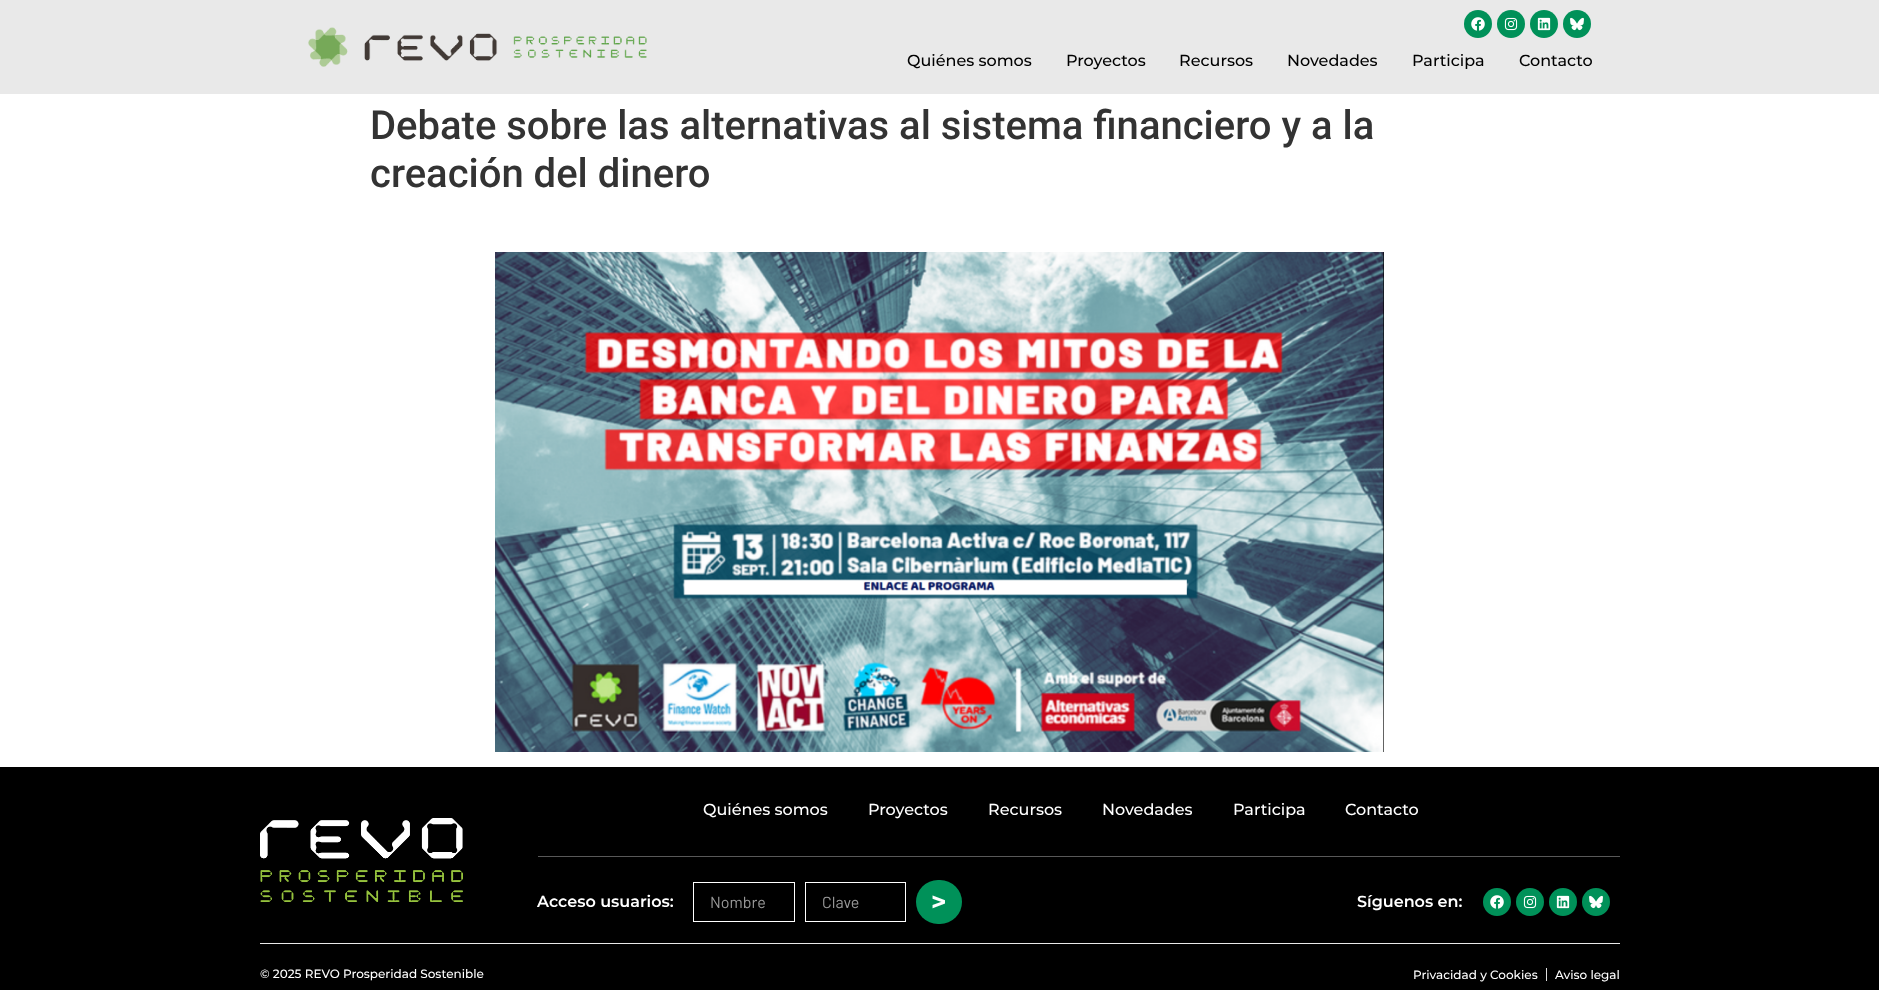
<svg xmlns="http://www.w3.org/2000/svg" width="1879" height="990">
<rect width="100%" height="100%" fill="#fff"/>
<rect width="1879" height="94" fill="#e9e9e9"/>
<image x="308" y="27" width="339" height="40" href="media/1.png"/>
<circle cx="1478" cy="24" r="14" fill="#009159"/>
<image x="1471" y="17" width="14" height="14" href="media/2.png"/>
<circle cx="1511" cy="24" r="14" fill="#009159"/>
<image x="1504" y="17" width="14" height="14" href="media/3.png"/>
<circle cx="1544" cy="24" r="14" fill="#009159"/>
<image x="1537" y="17" width="14" height="14" href="media/4.png"/>
<circle cx="1577" cy="24" r="14" fill="#009159"/>
<image x="1570" y="17" width="14" height="14" href="media/5.png"/>
<text x="907" y="66" style="font-family:Montserrat;font-size:16px;font-weight:500;fill:#000">Quiénes somos</text>
<text x="1066" y="66" style="font-family:Montserrat;font-size:16px;font-weight:500;fill:#000">Proyectos</text>
<text x="1179" y="66" style="font-family:Montserrat;font-size:16px;font-weight:500;fill:#000">Recursos</text>
<text x="1287" y="66" style="font-family:Montserrat;font-size:16px;font-weight:500;fill:#000">Novedades</text>
<text x="1412" y="66" style="font-family:Montserrat;font-size:16px;font-weight:500;fill:#000">Participa</text>
<text x="1519" y="66" style="font-family:Montserrat;font-size:16px;font-weight:500;fill:#000">Contacto</text>
<text x="370" y="139" style="font-family:Roboto;font-size:40px;font-weight:500;fill:#333">Debate sobre las alternativas al sistema financiero y a la</text>
<text x="370" y="187" style="font-family:Roboto;font-size:40px;font-weight:500;fill:#333">creación del dinero</text>
<image x="495" y="252" width="889" height="500" href="media/6.png"/>
<rect y="767" width="1879" height="223" fill="#000"/>
<rect x="260" y="943" width="1360" height="1" fill="#e9e9e9"/>
<image x="260" y="818" width="203" height="84" href="media/7.png"/>
<text x="703" y="815" style="font-family:Montserrat;font-size:16px;font-weight:500;fill:#fff">Quiénes somos</text>
<text x="868" y="815" style="font-family:Montserrat;font-size:16px;font-weight:500;fill:#fff">Proyectos</text>
<text x="988" y="815" style="font-family:Montserrat;font-size:16px;font-weight:500;fill:#fff">Recursos</text>
<text x="1102" y="815" style="font-family:Montserrat;font-size:16px;font-weight:500;fill:#fff">Novedades</text>
<text x="1233" y="815" style="font-family:Montserrat;font-size:16px;font-weight:500;fill:#fff">Participa</text>
<text x="1345" y="815" style="font-family:Montserrat;font-size:16px;font-weight:500;fill:#fff">Contacto</text>
<rect x="538" y="856" width="1082" height="1" fill="#585858"/>
<text x="537" y="907" style="font-family:Montserrat;font-size:16px;font-weight:600;fill:#fff">Acceso usuarios:</text>
<rect x="693.5" y="882.5" width="101" height="39" fill="none" stroke="#fff"/>
<text x="710" y="908" style="font-family:Barlow;font-size:16px;fill:#999">Nombre</text>
<rect x="805.5" y="882.5" width="100" height="39" fill="none" stroke="#fff"/>
<text x="822" y="908" style="font-family:Barlow;font-size:16px;fill:#999">Clave</text>
<rect x="916" y="880" width="46" height="44" rx="22" fill="#009159"/>
<text x="931" y="911" style="font-family:Montserrat;font-size:26px;font-weight:bold;fill:#fff">&gt;</text>
<text x="1357" y="907" style="font-family:Montserrat;font-size:16px;font-weight:600;fill:#fff">Síguenos en:</text>
<circle cx="1497" cy="902" r="14" fill="#009159"/>
<image x="1490" y="895" width="14" height="14" href="media/2.png"/>
<circle cx="1530" cy="902" r="14" fill="#009159"/>
<image x="1523" y="895" width="14" height="14" href="media/3.png"/>
<circle cx="1563" cy="902" r="14" fill="#009159"/>
<image x="1556" y="895" width="14" height="14" href="media/4.png"/>
<circle cx="1596" cy="902" r="14" fill="#009159"/>
<image x="1589" y="895" width="14" height="14" href="media/5.png"/>
<text x="260" y="978" style="font-family:Montserrat;font-size:12px;font-weight:500;fill:#fff">© 2025 REVO Prosperidad Sostenible</text>
<text x="1413" y="979" style="font-family:Montserrat;font-size:12px;font-weight:500;fill:#fff">Privacidad y Cookies</text>
<rect x="1546" y="968" width="1" height="13" fill="#ddd"/>
<text x="1555" y="979" style="font-family:Montserrat;font-size:12px;font-weight:500;fill:#fff">Aviso legal</text>
</svg>
